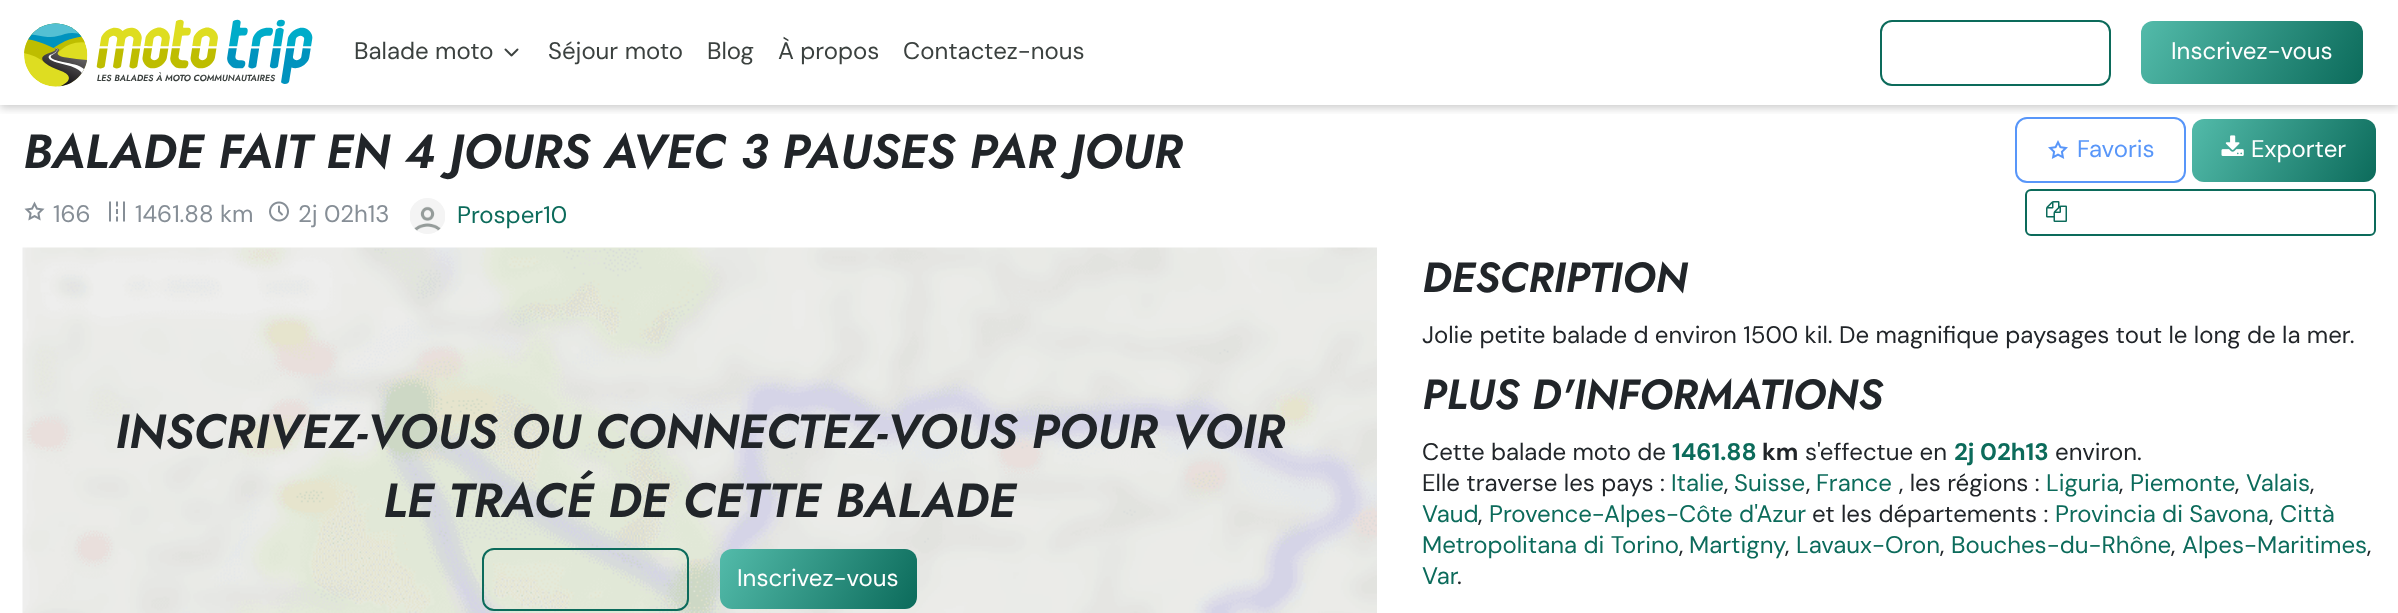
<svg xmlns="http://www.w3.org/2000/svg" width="2398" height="613">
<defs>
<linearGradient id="g1" gradientUnits="userSpaceOnUse" x1="2199" y1="105" x2="2369" y2="195"><stop offset="0" stop-color="#53bbaa"/><stop offset="1" stop-color="#0c6b5b"/></linearGradient>
<clipPath id="clip1"><rect x="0" y="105" width="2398" height="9"/></clipPath>
<linearGradient id="g2" gradientUnits="userSpaceOnUse" x1="2152" y1="-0.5" x2="2351" y2="105"><stop offset="0" stop-color="#53bbaa"/><stop offset="1" stop-color="#0c6b5b"/></linearGradient>
<linearGradient id="g3" gradientUnits="userSpaceOnUse" x1="729" y1="532" x2="907" y2="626"><stop offset="0" stop-color="#53bbaa"/><stop offset="1" stop-color="#0c6b5b"/></linearGradient>
</defs>
<rect width="100%" height="100%" fill="#fff"/>
<rect x="2016" y="118" width="169" height="64" rx="11" fill="none" stroke="#5896f9" stroke-width="2"/>
<rect x="2192" y="119" width="184" height="63" rx="12" fill="url(#g1)"/>
<g clip-path="url(#clip1)">
<rect y="3" width="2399" height="105" fill="#00000033" filter="blur(4.5px)"/>
</g>
<image x="24" y="19" width="289" height="68" href="media/1.png"/>
<text x="354" y="59" style="font-family:DM Sans;font-size:24px;fill:#3b413f">Balade moto</text>
<image x="504" y="48" width="15" height="9" href="media/2.png"/>
<text x="548" y="59" style="font-family:DM Sans;font-size:24px;fill:#3b413f">Séjour moto</text>
<text x="707" y="59" style="font-family:DM Sans;font-size:24px;fill:#3b413f">Blog</text>
<text x="778" y="59" style="font-family:DM Sans;font-size:24px;fill:#3b413f">À propos</text>
<text x="903" y="59" style="font-family:DM Sans;font-size:24px;fill:#3b413f">Contactez-nous</text>
<rect x="1881" y="21" width="229" height="64" rx="11" fill="none" stroke="#0c6b5b" stroke-width="2"/>
<rect x="2141" y="21" width="222" height="63" rx="12" fill="url(#g2)"/>
<text x="2171" y="59" style="font-family:DM Sans;font-size:24px;fill:#fff">Inscrivez-vous</text>
<text x="23" y="168" style="font-family:Jost;font-size:48px;font-weight:600;font-style:italic;fill:#212529">BALADE FAIT EN 4 JOURS AVEC 3 PAUSES PAR JOUR</text>
<image x="24" y="201" width="21" height="20" href="media/3.png"/>
<text x="53" y="222" style="font-family:DM Sans;font-size:24px;fill:#868e96">166</text>
<image x="109" y="201" width="16" height="21" href="media/4.png"/>
<text x="135" y="222" style="font-family:DM Sans;font-size:24px;fill:#868e96">1461.88 km</text>
<image x="269" y="201" width="20" height="21" href="media/5.png"/>
<text x="298" y="222" style="font-family:DM Sans;font-size:24px;fill:#868e96">2j 02h13</text>
<image x="410" y="198" width="35" height="36" href="media/6.png"/>
<text x="457" y="223" style="font-family:DM Sans;font-size:24px;fill:#0c6b5b">Prosper10</text>
<image x="2048" y="140" width="20" height="19" href="media/7.png"/>
<text x="2077" y="157" style="font-family:DM Sans;font-size:24px;fill:#5896f9">Favoris</text>
<image x="2221" y="135" width="23" height="21" href="media/8.png"/>
<text x="2251" y="157" style="font-family:DM Sans;font-size:24px;fill:#fff">Exporter</text>
<rect x="2026" y="190" width="349" height="45" rx="5" fill="none" stroke="#0c6b5b" stroke-width="2"/>
<image x="2046" y="201" width="21" height="21" href="media/9.png"/>
<image x="22" y="247" width="1355" height="366" href="media/10.png"/>
<text x="115" y="448" style="font-family:Jost;font-size:48px;font-weight:600;font-style:italic;fill:#212529">INSCRIVEZ-VOUS OU CONNECTEZ-VOUS POUR VOIR</text>
<text x="383" y="517" style="font-family:Jost;font-size:48px;font-weight:600;font-style:italic;fill:#212529">LE TRACÉ DE CETTE BALADE</text>
<rect x="483" y="549" width="205" height="61" rx="11" fill="none" stroke="#0c6b5b" stroke-width="2"/>
<rect x="720" y="549" width="197" height="60" rx="12" fill="url(#g3)"/>
<text x="737" y="586" style="font-family:DM Sans;font-size:24px;fill:#fff">Inscrivez-vous</text>
<text x="1422" y="292" style="font-family:Jost;font-size:42px;font-weight:600;font-style:italic;fill:#212529">DESCRIPTION</text>
<text x="1422" y="343" style="font-family:DM Sans;font-size:24px;fill:#212529">Jolie petite balade d environ 1500 kil. De magnifique paysages tout le long de la mer.</text>
<text x="1422" y="409" style="font-family:Jost;font-size:42px;font-weight:600;font-style:italic;fill:#212529">PLUS D'INFORMATIONS</text>
<text x="1422" y="460" style="font-family:DM Sans;font-size:24px;fill:#212529">Cette balade moto de</text>
<text x="1672" y="460" style="font-family:DM Sans;font-size:24px;font-weight:bold;fill:#0c6b5b">1461.88</text>
<text x="1762" y="460" style="font-family:DM Sans;font-size:24px;font-weight:bold;fill:#212529">km</text>
<text x="1805" y="460" style="font-family:DM Sans;font-size:24px;fill:#212529">s'effectue en</text>
<text x="1954" y="460" style="font-family:DM Sans;font-size:24px;font-weight:bold;fill:#0c6b5b">2j 02h13</text>
<text x="2055" y="460" style="font-family:DM Sans;font-size:24px;fill:#212529">environ.</text>
<text x="1422" y="491" style="font-family:DM Sans;font-size:24px;fill:#212529">Elle traverse les pays :</text>
<text x="1671" y="491" style="font-family:DM Sans;font-size:24px;fill:#0c6b5b">Italie</text>
<text x="1724" y="491" style="font-family:DM Sans;font-size:24px;fill:#212529">,</text>
<text x="1734" y="491" style="font-family:DM Sans;font-size:24px;fill:#0c6b5b">Suisse</text>
<text x="1806" y="491" style="font-family:DM Sans;font-size:24px;fill:#212529">,</text>
<text x="1816" y="491" style="font-family:DM Sans;font-size:24px;fill:#0c6b5b">France</text>
<text x="1899" y="491" style="font-family:DM Sans;font-size:24px;fill:#212529">, les régions :</text>
<text x="2046" y="491" style="font-family:DM Sans;font-size:24px;fill:#0c6b5b">Liguria</text>
<text x="2119" y="491" style="font-family:DM Sans;font-size:24px;fill:#212529">,</text>
<text x="2130" y="491" style="font-family:DM Sans;font-size:24px;fill:#0c6b5b">Piemonte</text>
<text x="2235" y="491" style="font-family:DM Sans;font-size:24px;fill:#212529">,</text>
<text x="2246" y="491" style="font-family:DM Sans;font-size:24px;fill:#0c6b5b">Valais</text>
<text x="2310" y="491" style="font-family:DM Sans;font-size:24px;fill:#212529">,</text>
<text x="1422" y="522" style="font-family:DM Sans;font-size:24px;fill:#0c6b5b">Vaud</text>
<text x="1478" y="522" style="font-family:DM Sans;font-size:24px;fill:#212529">,</text>
<text x="1489" y="522" style="font-family:DM Sans;font-size:24px;fill:#0c6b5b">Provence-Alpes-Côte d'Azur</text>
<text x="1812" y="522" style="font-family:DM Sans;font-size:24px;fill:#212529">et les départements :</text>
<text x="2055" y="522" style="font-family:DM Sans;font-size:24px;fill:#0c6b5b">Provincia di Savona</text>
<text x="2269" y="522" style="font-family:DM Sans;font-size:24px;fill:#212529">,</text>
<text x="2280" y="522" style="font-family:DM Sans;font-size:24px;fill:#0c6b5b">Città</text>
<text x="1422" y="553" style="font-family:DM Sans;font-size:24px;fill:#0c6b5b">Metropolitana di Torino</text>
<text x="1679" y="553" style="font-family:DM Sans;font-size:24px;fill:#212529">,</text>
<text x="1689" y="553" style="font-family:DM Sans;font-size:24px;fill:#0c6b5b">Martigny</text>
<text x="1796" y="553" style="font-family:DM Sans;font-size:24px;fill:#0c6b5b">Lavaux-Oron</text>
<text x="1951" y="553" style="font-family:DM Sans;font-size:24px;fill:#0c6b5b">Bouches-du-Rhône</text>
<text x="2182" y="553" style="font-family:DM Sans;font-size:24px;fill:#0c6b5b">Alpes-Maritimes</text>
<text x="1785" y="553" style="font-family:DM Sans;font-size:24px;fill:#212529">,</text>
<text x="1940" y="553" style="font-family:DM Sans;font-size:24px;fill:#212529">,</text>
<text x="2171" y="553" style="font-family:DM Sans;font-size:24px;fill:#212529">,</text>
<text x="2367" y="553" style="font-family:DM Sans;font-size:24px;fill:#212529">,</text>
<text x="1422" y="584" style="font-family:DM Sans;font-size:24px;fill:#0c6b5b">Var</text>
<text x="1457" y="584" style="font-family:DM Sans;font-size:24px;fill:#212529">.</text>
</svg>
